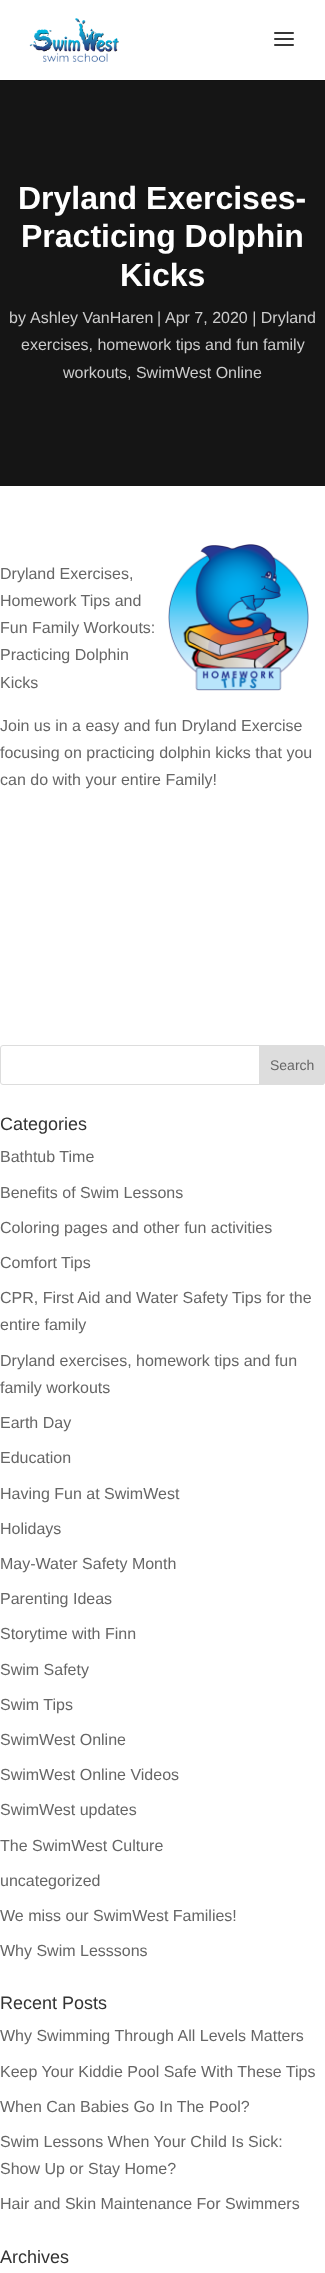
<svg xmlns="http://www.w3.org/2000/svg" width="325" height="2273">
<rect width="100%" height="100%" fill="#fff"/>
<rect y="80" width="325" height="1" fill="#131313"/>
<image x="29" y="18" width="90" height="44" href="media/1.png"/>
<image x="274" y="32" width="20" height="14" href="media/2.png"/>
<rect y="81" width="325" height="405" fill="#151515"/>
<text x="18" y="209" style="font-family:Liberation Sans;font-size:32px;font-weight:bold;fill:#fff">Dryland Exercises-</text>
<text x="21" y="247" style="font-family:Liberation Sans;font-size:32px;font-weight:bold;fill:#fff">Practicing Dolphin</text>
<text x="120" y="286" style="font-family:Liberation Sans;font-size:32px;font-weight:bold;fill:#fff">Kicks</text>
<text x="9" y="323" style="font-family:Liberation Sans;font-size:16px;fill:#ccc">by</text>
<text x="30" y="323" style="font-family:Liberation Sans;font-size:16px;fill:#ccc">Ashley VanHaren</text>
<text x="157" y="323" style="font-family:Liberation Sans;font-size:16px;fill:#ccc">|</text>
<text x="165" y="323" style="font-family:Liberation Sans;font-size:16px;fill:#ccc">Apr 7, 2020 | Dryland</text>
<text x="21" y="350" style="font-family:Liberation Sans;font-size:16px;fill:#ccc">exercises, homework tips and fun family</text>
<text x="63" y="378" style="font-family:Liberation Sans;font-size:16px;fill:#ccc">workouts, SwimWest Online</text>
<text x="0" y="579" style="font-family:Liberation Sans;font-size:16px;fill:#666">Dryland Exercises,</text>
<text x="0" y="606" style="font-family:Liberation Sans;font-size:16px;fill:#666">Homework Tips and</text>
<text x="0" y="633" style="font-family:Liberation Sans;font-size:16px;fill:#666">Fun Family Workouts:</text>
<text x="0" y="660" style="font-family:Liberation Sans;font-size:16px;fill:#666">Practicing Dolphin</text>
<text x="0" y="688" style="font-family:Liberation Sans;font-size:16px;fill:#666">Kicks</text>
<image x="168" y="544" width="141" height="147" href="media/3.png"/>
<text x="0" y="731" style="font-family:Liberation Sans;font-size:16px;fill:#666">Join us in a easy and fun Dryland Exercise</text>
<text x="0" y="758" style="font-family:Liberation Sans;font-size:16px;fill:#666">focusing on practicing dolphin kicks that you</text>
<text x="0" y="785" style="font-family:Liberation Sans;font-size:16px;fill:#666">can do with your entire Family!</text>
<rect x="0.5" y="1045.5" width="324" height="39" rx="2.5" fill="none" stroke="#ddd"/>
<path d="M259.5 1045.5h62.5c1.5 0 2.5 1 2.5 2.5v34c0 1.5-1 2.5-2.5 2.5h-62.5z" fill="#ddd" stroke="#ddd"/>
<text x="270" y="1070" style="font-family:Liberation Sans;font-size:14px;fill:#666">Search</text>
<text x="0" y="1130" style="font-family:Liberation Sans;font-size:18px;fill:#333">Categories</text>
<text x="0" y="1162" style="font-family:Liberation Sans;font-size:16px;fill:#666">Bathtub Time</text>
<text x="0" y="1198" style="font-family:Liberation Sans;font-size:16px;fill:#666">Benefits of Swim Lessons</text>
<text x="0" y="1233" style="font-family:Liberation Sans;font-size:16px;fill:#666">Coloring pages and other fun activities</text>
<text x="0" y="1268" style="font-family:Liberation Sans;font-size:16px;fill:#666">Comfort Tips</text>
<text x="0" y="1303" style="font-family:Liberation Sans;font-size:16px;fill:#666">CPR, First Aid and Water Safety Tips for the</text>
<text x="0" y="1330" style="font-family:Liberation Sans;font-size:16px;fill:#666">entire family</text>
<text x="0" y="1366" style="font-family:Liberation Sans;font-size:16px;fill:#666">Dryland exercises, homework tips and fun</text>
<text x="0" y="1393" style="font-family:Liberation Sans;font-size:16px;fill:#666">family workouts</text>
<text x="0" y="1428" style="font-family:Liberation Sans;font-size:16px;fill:#666">Earth Day</text>
<text x="0" y="1463" style="font-family:Liberation Sans;font-size:16px;fill:#666">Education</text>
<text x="0" y="1499" style="font-family:Liberation Sans;font-size:16px;fill:#666">Having Fun at SwimWest</text>
<text x="0" y="1534" style="font-family:Liberation Sans;font-size:16px;fill:#666">Holidays</text>
<text x="0" y="1569" style="font-family:Liberation Sans;font-size:16px;fill:#666">May-Water Safety Month</text>
<text x="0" y="1604" style="font-family:Liberation Sans;font-size:16px;fill:#666">Parenting Ideas</text>
<text x="0" y="1639" style="font-family:Liberation Sans;font-size:16px;fill:#666">Storytime with Finn</text>
<text x="0" y="1675" style="font-family:Liberation Sans;font-size:16px;fill:#666">Swim Safety</text>
<text x="0" y="1710" style="font-family:Liberation Sans;font-size:16px;fill:#666">Swim Tips</text>
<text x="0" y="1745" style="font-family:Liberation Sans;font-size:16px;fill:#666">SwimWest Online</text>
<text x="0" y="1780" style="font-family:Liberation Sans;font-size:16px;fill:#666">SwimWest Online Videos</text>
<text x="0" y="1815" style="font-family:Liberation Sans;font-size:16px;fill:#666">SwimWest updates</text>
<text x="0" y="1851" style="font-family:Liberation Sans;font-size:16px;fill:#666">The SwimWest Culture</text>
<text x="0" y="1886" style="font-family:Liberation Sans;font-size:16px;fill:#666">uncategorized</text>
<text x="0" y="1921" style="font-family:Liberation Sans;font-size:16px;fill:#666">We miss our SwimWest Families!</text>
<text x="0" y="1956" style="font-family:Liberation Sans;font-size:16px;fill:#666">Why Swim Lesssons</text>
<text x="0" y="2009" style="font-family:Liberation Sans;font-size:18px;fill:#333">Recent Posts</text>
<text x="0" y="2041" style="font-family:Liberation Sans;font-size:16px;fill:#666">Why Swimming Through All Levels Matters</text>
<text x="0" y="2077" style="font-family:Liberation Sans;font-size:16px;fill:#666">Keep Your Kiddie Pool Safe With These Tips</text>
<text x="0" y="2112" style="font-family:Liberation Sans;font-size:16px;fill:#666">When Can Babies Go In The Pool?</text>
<text x="0" y="2147" style="font-family:Liberation Sans;font-size:16px;fill:#666">Swim Lessons When Your Child Is Sick:</text>
<text x="0" y="2174" style="font-family:Liberation Sans;font-size:16px;fill:#666">Show Up or Stay Home?</text>
<text x="0" y="2209" style="font-family:Liberation Sans;font-size:16px;fill:#666">Hair and Skin Maintenance For Swimmers</text>
<text x="0" y="2263" style="font-family:Liberation Sans;font-size:18px;fill:#333">Archives</text>
</svg>
